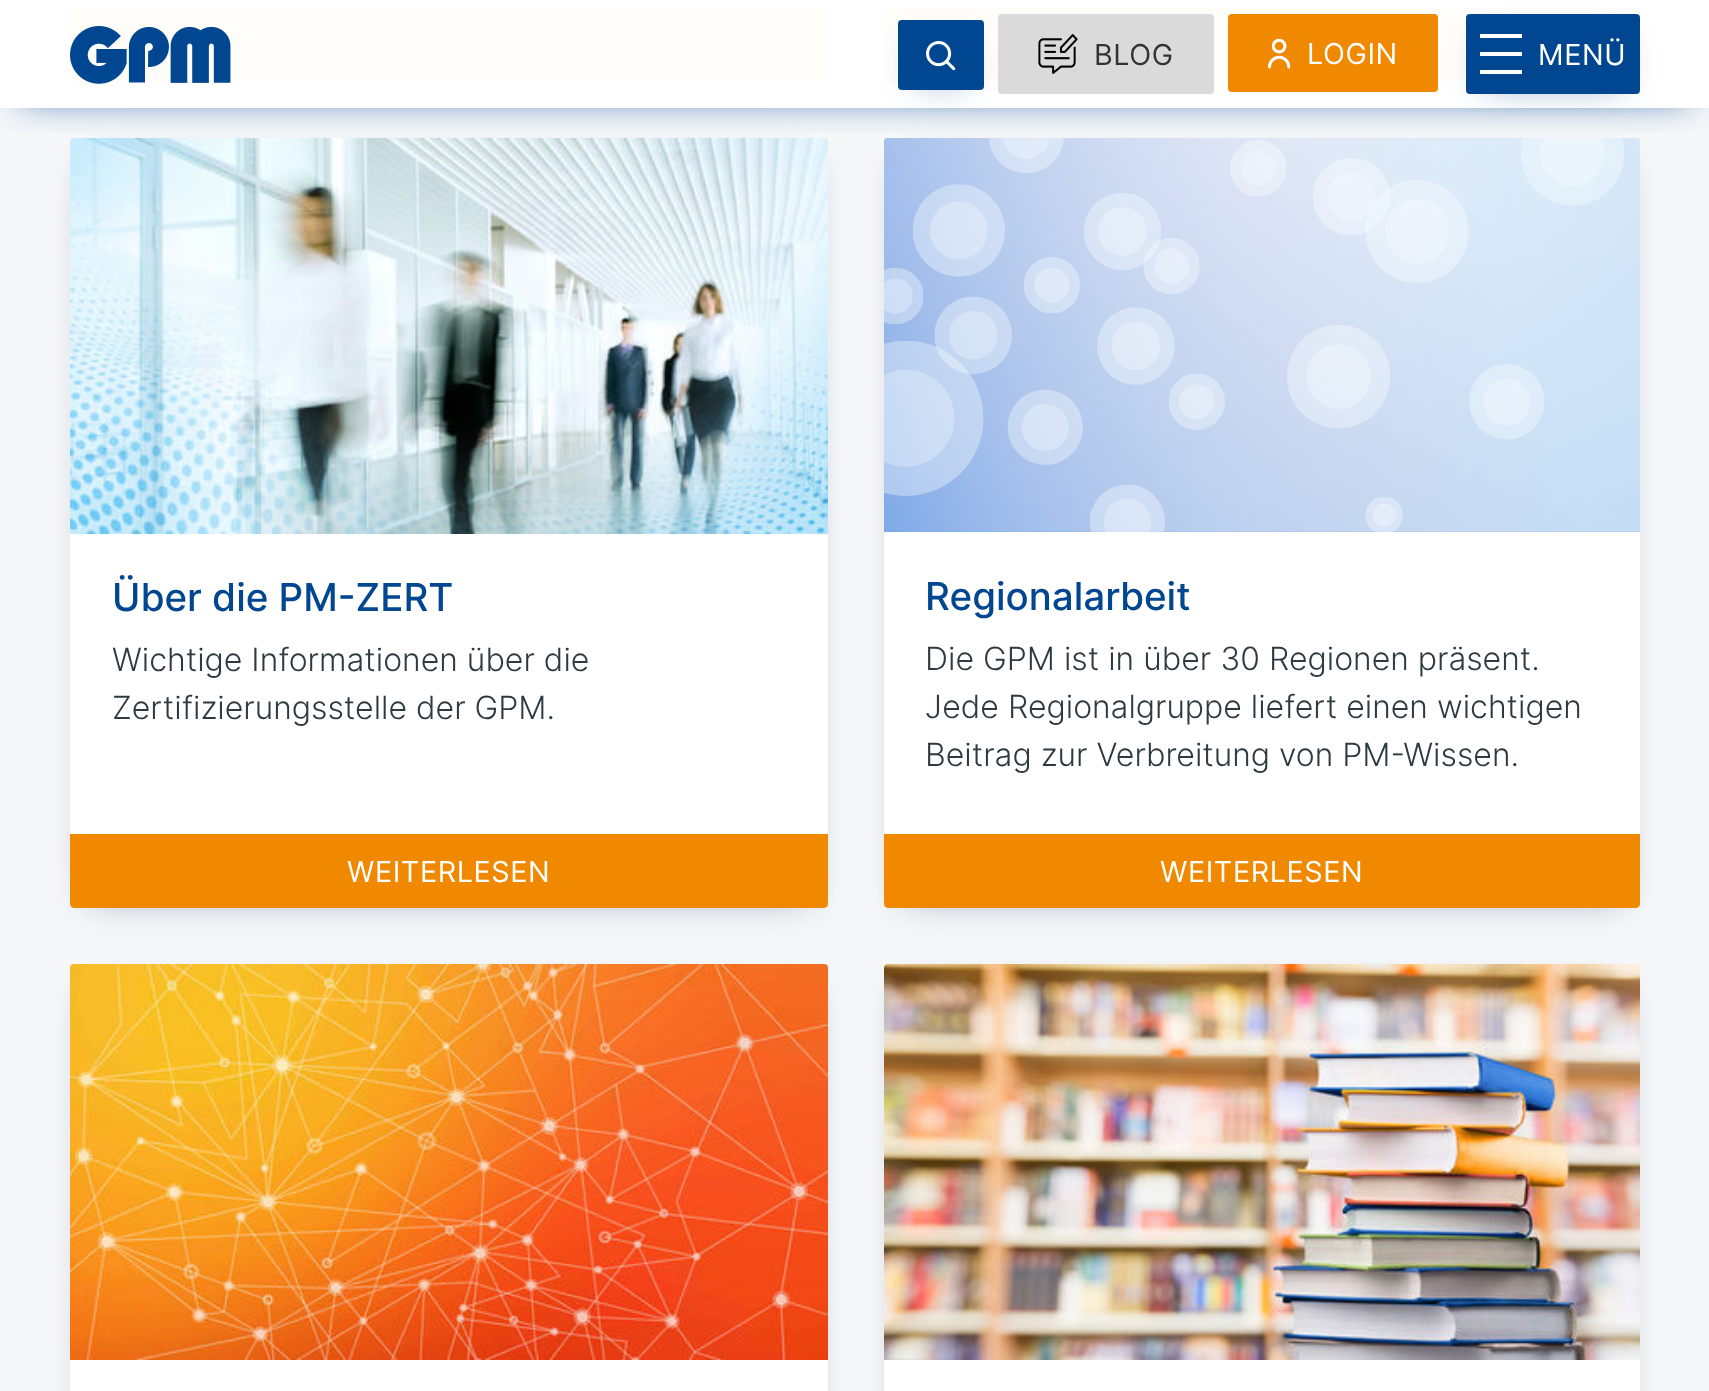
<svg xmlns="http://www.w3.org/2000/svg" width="1709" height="1391">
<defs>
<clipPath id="clip1"><rect x="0" y="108" width="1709" height="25"/></clipPath>
</defs>
<rect width="100%" height="100%" fill="#f5f7f9"/>
<rect x="90" y="-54" width="718" height="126" fill="#99a0af" filter="blur(18px)"/>
<rect x="70" y="-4" width="758" height="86" rx="4" fill="#fff"/>
<path d="M70 8h758v70c0 2-2 4-4 4h-750c-2 0-4-2-4-4z" fill="#f08800"/>
<rect x="904" y="-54" width="716" height="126" fill="#99a0af" filter="blur(18px)"/>
<rect x="884" y="-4" width="756" height="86" rx="4" fill="#fff"/>
<path d="M884 8h756v70c0 2-2 4-4 4h-748c-2 0-4-2-4-4z" fill="#f08800"/>
<rect x="90" y="168" width="718" height="730" fill="#99a0af" filter="blur(18px)"/>
<rect x="70" y="138" width="758" height="770" rx="4" fill="#fff"/>
<image x="70" y="138" width="758" height="396" href="media/5.png"/>
<rect x="904" y="168" width="716" height="730" fill="#99a0af" filter="blur(18px)"/>
<rect x="884" y="138" width="756" height="770" rx="4" fill="#fff"/>
<image x="884" y="138" width="756" height="394" href="media/6.png"/>
<g clip-path="url(#clip1)">
<rect x="20" y="30" width="1670" height="68" fill="#004691cc" filter="blur(18px)"/>
</g>
<rect width="1709" height="108" fill="#fffffffa"/>
<image x="70" y="26" width="161" height="58" href="media/1.png"/>
<rect x="918" y="50" width="46" height="30" fill="#00469180" filter="blur(18px)"/>
<rect x="898" y="20" width="86" height="70" rx="4" fill="#004691"/>
<image x="926" y="41" width="30" height="30" href="media/2.png"/>
<rect x="998" y="14" width="216" height="80" rx="4" fill="#dadada"/>
<image x="1038" y="34" width="40" height="40" href="media/3.png"/>
<text x="1094" y="65" style="font-family:Inter;font-size:28.75px;font-style:italic;letter-spacing:0.6px;fill:#333">BLOG</text>
<rect x="1228" y="14" width="210" height="78" rx="4" fill="#f08800"/>
<image x="1268" y="38" width="23" height="31" href="media/4.png"/>
<text x="1307" y="64" style="font-family:Inter;font-size:28.75px;font-style:italic;letter-spacing:0.6px;fill:#fff">LOGIN</text>
<rect x="1486" y="44" width="134" height="40" fill="#00469180" filter="blur(18px)"/>
<rect x="1466" y="14" width="174" height="80" rx="4" fill="#004691"/>
<rect x="1480" y="34" width="42" height="4" fill="#fff"/>
<rect x="1480" y="52" width="42" height="4" fill="#fff"/>
<rect x="1480" y="70" width="42" height="4" fill="#fff"/>
<text x="1538" y="65" style="font-family:Inter;font-size:28.75px;font-style:italic;letter-spacing:0.6px;fill:#fff">MENÜ</text>
<text x="112" y="611" style="font-family:Inter;font-size:38.5px;font-weight:500;font-style:italic;fill:#004691">Über die PM-ZERT</text>
<text x="112" y="671" style="font-family:Inter;font-size:32px;font-weight:300;font-style:italic;fill:#2e3a42">Wichtige Informationen über die</text>
<text x="112" y="719" style="font-family:Inter;font-size:32px;font-weight:300;font-style:italic;fill:#2e3a42">Zertifizierungsstelle der GPM.</text>
<path d="M70 834h758v70c0 2-2 4-4 4h-750c-2 0-4-2-4-4z" fill="#f08800"/>
<text x="347" y="882" style="font-family:Inter;font-size:28.75px;font-style:italic;letter-spacing:0.6px;fill:#fff">WEITERLESEN</text>
<text x="925" y="610" style="font-family:Inter;font-size:38.5px;font-weight:500;font-style:italic;fill:#004691">Regionalarbeit</text>
<text x="925" y="670" style="font-family:Inter;font-size:32px;font-weight:300;font-style:italic;fill:#2e3a42">Die GPM ist in über 30 Regionen präsent.</text>
<text x="925" y="718" style="font-family:Inter;font-size:32px;font-weight:300;font-style:italic;fill:#2e3a42">Jede Regionalgruppe liefert einen wichtigen</text>
<text x="925" y="766" style="font-family:Inter;font-size:32px;font-weight:300;font-style:italic;fill:#2e3a42">Beitrag zur Verbreitung von PM-Wissen.</text>
<path d="M884 834h756v70c0 2-2 4-4 4h-748c-2 0-4-2-4-4z" fill="#f08800"/>
<text x="1160" y="882" style="font-family:Inter;font-size:28.75px;font-style:italic;letter-spacing:0.6px;fill:#fff">WEITERLESEN</text>
<rect x="90" y="994" width="718" height="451" fill="#99a0af" filter="blur(18px)"/>
<rect x="70" y="964" width="758" height="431" rx="4" fill="#fff"/>
<image x="70" y="964" width="758" height="396" href="media/7.png"/>
<rect x="904" y="994" width="716" height="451" fill="#99a0af" filter="blur(18px)"/>
<rect x="884" y="964" width="756" height="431" rx="4" fill="#fff"/>
<image x="884" y="964" width="756" height="396" href="media/8.png"/>
</svg>
